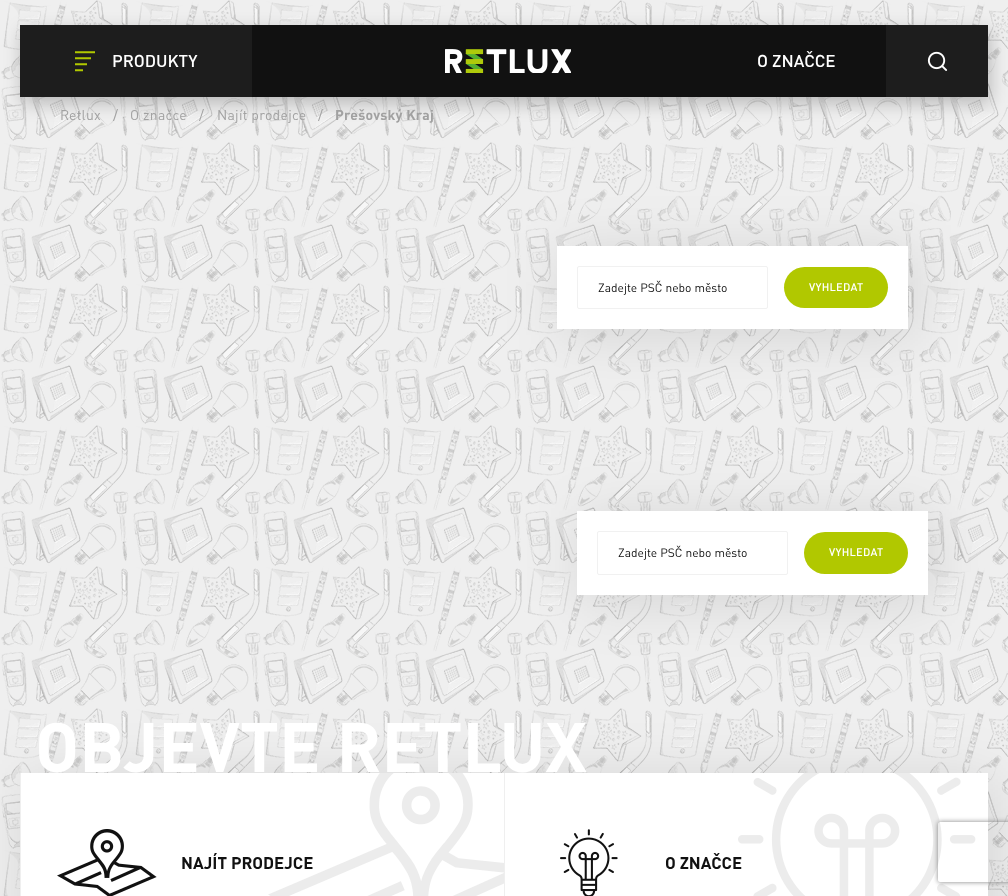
<svg xmlns="http://www.w3.org/2000/svg" width="1008" height="896">
<defs>
<clipPath id="clip1"><path d="M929 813h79v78h-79zm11 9h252c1 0 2 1 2 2v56c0 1-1 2-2 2h-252c-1 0-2-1-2-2v-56c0-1 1-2 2-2z" clip-rule="evenodd"/></clipPath>
</defs>
<rect width="100%" height="100%" fill="#efefef"/>
<image x="1" y="0" width="1007" height="896" href="media/4.png"/>
<rect x="22" y="31" width="968" height="72" fill="#0000003b" filter="blur(9px)"/>
<rect x="252" y="25" width="634" height="72" fill="#111"/>
<rect x="20" y="25" width="232" height="72" fill="#1d1d1d"/>
<image x="75" y="51" width="20" height="21" href="media/1.png"/>
<text x="112" y="67" style="font-family:DIN;font-size:17px;font-weight:500;fill:#fff">PRODUKTY</text>
<image x="445" y="49" width="126" height="24" href="media/2.png"/>
<text x="757" y="67" style="font-family:DIN;font-size:17px;font-weight:500;fill:#fff">O ZNAČCE</text>
<rect x="886" y="25" width="102" height="72" fill="#1d1d1d"/>
<image x="927" y="51" width="21" height="20" href="media/3.png"/>
<text x="60" y="120" style="font-family:DIN;font-size:14px;letter-spacing:0.25px;fill:#a1a1a1">Retlux</text>
<text x="113" y="120" style="font-family:DIN;font-size:14px;letter-spacing:0.25px;fill:#a1a1a1">/</text>
<text x="130" y="120" style="font-family:DIN;font-size:14px;letter-spacing:0.25px;fill:#a1a1a1">O značce</text>
<text x="199" y="120" style="font-family:DIN;font-size:14px;letter-spacing:0.25px;fill:#a1a1a1">/</text>
<text x="217" y="120" style="font-family:DIN;font-size:14px;letter-spacing:0.25px;fill:#a1a1a1">Najít prodejce</text>
<text x="318" y="120" style="font-family:DIN;font-size:14px;letter-spacing:0.25px;fill:#a1a1a1">/</text>
<text x="335" y="120" style="font-family:DIN;font-size:14px;font-weight:bold;letter-spacing:0.25px;fill:#a1a1a1">Prešovský Kraj</text>
<rect x="563" y="252" width="351" height="83" fill="#0000001c" filter="blur(28.5px)"/>
<rect x="557" y="246" width="351" height="83" fill="#fff"/>
<rect x="577.5" y="266.5" width="190" height="42" rx="1.5" fill="none" stroke="#f1f1f1"/>
<text x="598" y="292" style="font-family:DIN;font-size:12px;fill:#111">Zadejte PSČ nebo město</text>
<rect x="784" y="267" width="104" height="41" rx="20.5" fill="#b1c800"/>
<text x="809" y="291" style="font-family:DIN;font-size:11px;font-weight:500;letter-spacing:0.25px;fill:#fff">VYHLEDAT</text>
<rect x="583" y="517" width="351" height="84" fill="#0000001c" filter="blur(28.5px)"/>
<rect x="577" y="511" width="351" height="84" fill="#fff"/>
<rect x="597.5" y="531.5" width="190" height="43" rx="1.5" fill="none" stroke="#f1f1f1"/>
<text x="618" y="557" style="font-family:DIN;font-size:12px;fill:#111">Zadejte PSČ nebo město</text>
<rect x="804" y="532" width="104" height="42" rx="21" fill="#b1c800"/>
<text x="829" y="556" style="font-family:DIN;font-size:11px;font-weight:500;letter-spacing:0.25px;fill:#fff">VYHLEDAT</text>
<rect x="26" y="779" width="968" height="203" fill="#0000001c" filter="blur(28.5px)"/>
<text x="35" y="772" style="font-family:DIN;font-size:68.75px;font-weight:bold;fill:#fff">OBJEVTE RETLUX</text>
<rect x="21" y="773" width="967" height="123" fill="#fff"/>
<rect x="20" y="773" width="1" height="123" fill="#efefef"/>
<image x="57" y="829" width="100" height="67" href="media/5.png"/>
<image x="268" y="773" width="236" height="123" href="media/6.png"/>
<text x="181" y="869" style="font-family:DIN;font-size:16.75px;font-weight:bold;fill:#111">NAJÍT PRODEJCE</text>
<rect x="504" y="773" width="1" height="123" fill="#efefef"/>
<image x="560" y="829" width="58" height="67" href="media/7.png"/>
<image x="738" y="773" width="238" height="123" href="media/8.png"/>
<text x="665" y="869" style="font-family:DIN;font-size:16.75px;font-weight:bold;fill:#111">O ZNAČCE</text>
<g clip-path="url(#clip1)">
<rect x="938" y="822" width="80" height="60" rx="2" fill="#808080" filter="blur(2.5px)"/>
</g>
</svg>
